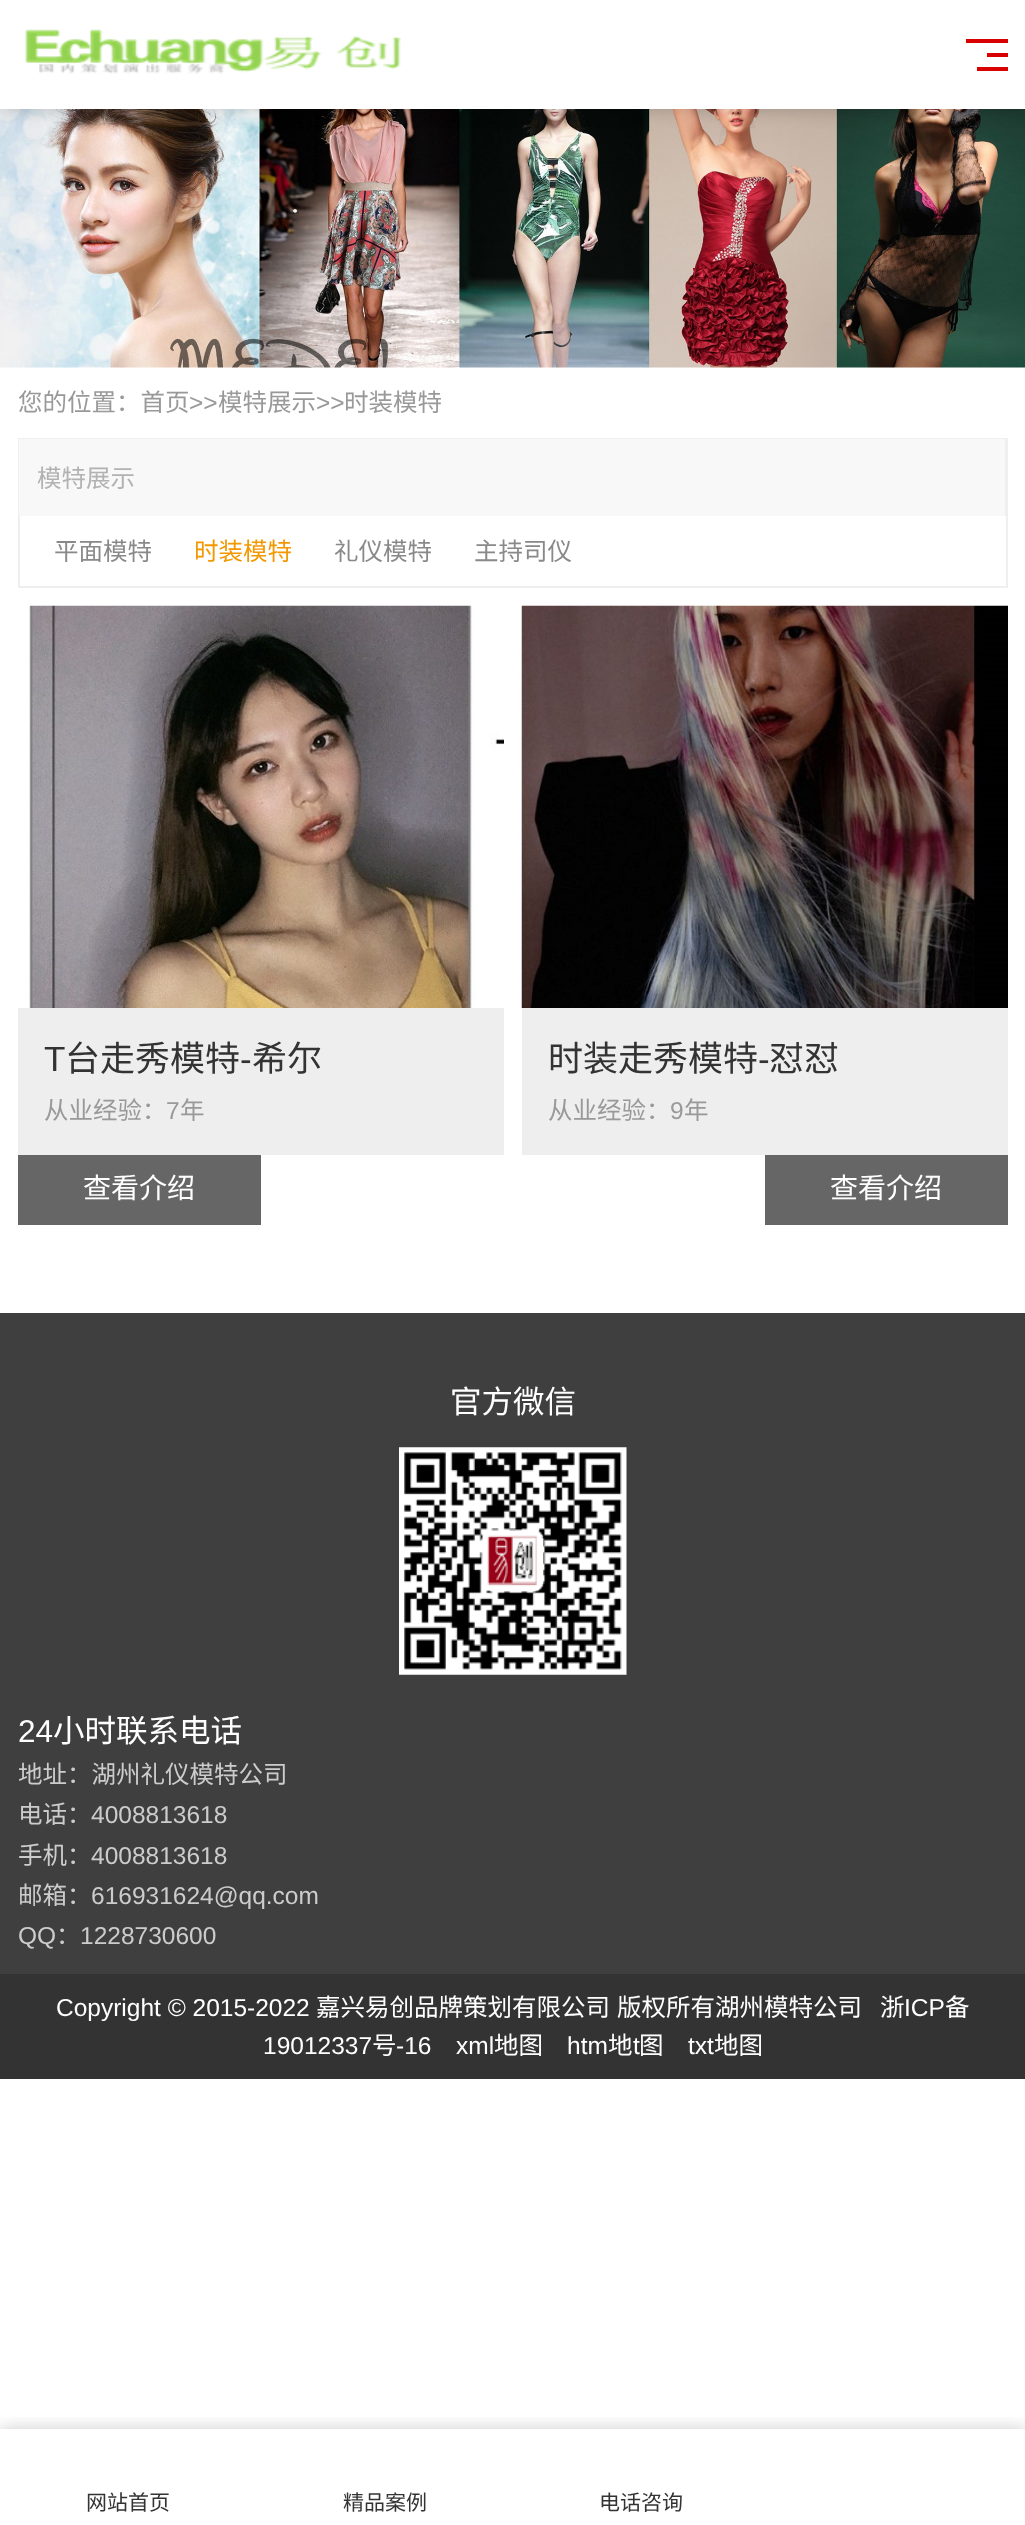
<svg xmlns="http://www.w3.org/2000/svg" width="1025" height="2525">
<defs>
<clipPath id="clip1"><rect x="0" y="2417" width="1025" height="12"/></clipPath>
</defs>
<rect width="100%" height="100%" fill="#fff"/>
<image x="0" y="109" width="1025" height="259" href="media/2.png"/>
<rect width="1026" height="109" fill="#00000033" filter="blur(9px)"/>
<rect width="1025" height="109" fill="#fff"/>
<image x="25" y="29" width="376" height="45" href="media/1.png"/>
<rect x="966" y="39" width="42" height="4" fill="#d90100"/>
<rect x="987" y="53" width="21" height="4" fill="#d90100"/>
<rect x="977" y="67" width="31" height="4" fill="#d90100"/>
<text x="18" y="411" style="font-family:Noto Sans CJK SC;font-size:24.5px;fill:#999">您的位置：首页</text>
<text x="189" y="411" style="font-family:Liberation Sans;font-size:24.5px;fill:#999">&gt;&gt;</text>
<text x="218" y="411" style="font-family:Noto Sans CJK SC;font-size:24.5px;fill:#999">模特展示</text>
<text x="316" y="411" style="font-family:Liberation Sans;font-size:24.5px;fill:#999">&gt;&gt;</text>
<text x="344" y="411" style="font-family:Noto Sans CJK SC;font-size:24.5px;fill:#999">时装模特</text>
<rect x="19" y="439" width="988" height="148" fill="none" stroke="#efefef" stroke-width="2"/>
<rect x="19" y="439" width="986" height="77" fill="#f8f8f8"/>
<rect x="1005" y="439" width="1" height="77" fill="#efefef"/>
<text x="37" y="487" style="font-family:Noto Sans CJK SC;font-size:24.5px;fill:#b2b2b2">模特展示</text>
<text x="54" y="560" style="font-family:Noto Sans CJK SC;font-size:24.5px;fill:#898989">平面模特</text>
<text x="194" y="560" style="font-family:Noto Sans CJK SC;font-size:24.5px;fill:#f39801">时装模特</text>
<text x="334" y="560" style="font-family:Noto Sans CJK SC;font-size:24.5px;fill:#898989">礼仪模特</text>
<text x="474" y="560" style="font-family:Noto Sans CJK SC;font-size:24.5px;fill:#898989">主持司仪</text>
<image x="29" y="605" width="475" height="403" href="media/3.png"/>
<rect x="18" y="1008" width="486" height="147" fill="#eee"/>
<text x="44" y="1071" style="font-family:Liberation Sans;font-size:35px;fill:#333">T</text>
<text x="65" y="1071" style="font-family:Noto Sans CJK SC;font-size:35px;fill:#333">台走秀模特</text>
<text x="240" y="1071" style="font-family:Liberation Sans;font-size:35px;fill:#333">-</text>
<text x="252" y="1071" style="font-family:Noto Sans CJK SC;font-size:35px;fill:#333">希尔</text>
<text x="44" y="1119" style="font-family:Noto Sans CJK SC;font-size:24.5px;fill:#999">从业经验：</text>
<text x="166" y="1119" style="font-family:Liberation Sans;font-size:24.5px;fill:#999">7</text>
<text x="180" y="1119" style="font-family:Noto Sans CJK SC;font-size:24.5px;fill:#999">年</text>
<rect x="18" y="1155" width="243" height="70" fill="#666"/>
<text x="83" y="1198" style="font-family:Noto Sans CJK SC;font-size:28px;fill:#fff">查看介绍</text>
<image x="521" y="605" width="487" height="403" href="media/4.png"/>
<rect x="522" y="1008" width="486" height="147" fill="#eee"/>
<text x="548" y="1071" style="font-family:Noto Sans CJK SC;font-size:35px;fill:#333">时装走秀模特</text>
<text x="758" y="1071" style="font-family:Liberation Sans;font-size:35px;fill:#333">-</text>
<text x="769" y="1071" style="font-family:Noto Sans CJK SC;font-size:35px;fill:#333">怼怼</text>
<text x="548" y="1119" style="font-family:Noto Sans CJK SC;font-size:24.5px;fill:#999">从业经验：</text>
<text x="670" y="1119" style="font-family:Liberation Sans;font-size:24.5px;fill:#999">9</text>
<text x="684" y="1119" style="font-family:Noto Sans CJK SC;font-size:24.5px;fill:#999">年</text>
<rect x="765" y="1155" width="243" height="70" fill="#666"/>
<text x="830" y="1198" style="font-family:Noto Sans CJK SC;font-size:28px;fill:#fff">查看介绍</text>
<rect y="1313" width="1025" height="661" fill="#3f3f3f"/>
<text x="450" y="1413" style="font-family:Noto Sans CJK SC;font-size:31.5px;fill:#fff">官方微信</text>
<image x="399" y="1447" width="228" height="228" href="media/5.png"/>
<text x="18" y="1742" style="font-family:Liberation Sans;font-size:31.5px;fill:#fff">24</text>
<text x="53" y="1742" style="font-family:Noto Sans CJK SC;font-size:31.5px;fill:#fff">小时联系电话</text>
<text x="18" y="1783" style="font-family:Noto Sans CJK SC;font-size:24.5px;fill:#ccc">地址：湖州礼仪模特公司</text>
<text x="18" y="1823" style="font-family:Noto Sans CJK SC;font-size:24.5px;fill:#ccc">电话：</text>
<text x="91" y="1823" style="font-family:Liberation Sans;font-size:24.5px;fill:#ccc">4008813618</text>
<text x="18" y="1864" style="font-family:Noto Sans CJK SC;font-size:24.5px;fill:#ccc">手机：</text>
<text x="91" y="1864" style="font-family:Liberation Sans;font-size:24.5px;fill:#ccc">4008813618</text>
<text x="18" y="1904" style="font-family:Noto Sans CJK SC;font-size:24.5px;fill:#ccc">邮箱：</text>
<text x="91" y="1904" style="font-family:Liberation Sans;font-size:24.5px;fill:#ccc">616931624@qq.com</text>
<text x="18" y="1944" style="font-family:Liberation Sans;font-size:24.5px;fill:#ccc">QQ</text>
<text x="56" y="1944" style="font-family:Noto Sans CJK SC;font-size:24.5px;fill:#ccc">：</text>
<text x="80" y="1944" style="font-family:Liberation Sans;font-size:24.5px;fill:#ccc">1228730600</text>
<rect y="1974" width="1025" height="105" fill="#333"/>
<text x="56" y="2016" style="font-family:Liberation Sans;font-size:24.5px;fill:#fff">Copyright © 2015-2022</text>
<text x="316" y="2016" style="font-family:Noto Sans CJK SC;font-size:24.5px;fill:#fff">嘉兴易创品牌策划有限公司</text>
<text x="617" y="2016" style="font-family:Noto Sans CJK SC;font-size:24.5px;fill:#fff">版权所有湖州模特公司</text>
<text x="880" y="2016" style="font-family:Noto Sans CJK SC;font-size:24.5px;fill:#fff">浙</text>
<text x="904" y="2016" style="font-family:Liberation Sans;font-size:24.5px;fill:#fff">ICP</text>
<text x="945" y="2016" style="font-family:Noto Sans CJK SC;font-size:24.5px;fill:#fff">备</text>
<text x="263" y="2054" style="font-family:Liberation Sans;font-size:24.5px;fill:#fff">19012337</text>
<text x="372" y="2054" style="font-family:Noto Sans CJK SC;font-size:24.5px;fill:#fff">号</text>
<text x="396" y="2054" style="font-family:Liberation Sans;font-size:24.5px;fill:#fff">-16</text>
<text x="456" y="2054" style="font-family:Liberation Sans;font-size:24.5px;fill:#fff">xml</text>
<text x="494" y="2054" style="font-family:Noto Sans CJK SC;font-size:24.5px;fill:#fff">地图</text>
<text x="567" y="2054" style="font-family:Liberation Sans;font-size:24.5px;fill:#fff">htm</text>
<text x="608" y="2054" style="font-family:Noto Sans CJK SC;font-size:24.5px;fill:#fff">地</text>
<text x="633" y="2054" style="font-family:Liberation Sans;font-size:24.5px;fill:#fff">t</text>
<text x="639" y="2054" style="font-family:Noto Sans CJK SC;font-size:24.5px;fill:#fff">图</text>
<text x="688" y="2054" style="font-family:Liberation Sans;font-size:24.5px;fill:#fff">txt</text>
<text x="714" y="2054" style="font-family:Noto Sans CJK SC;font-size:24.5px;fill:#fff">地图</text>
<g clip-path="url(#clip1)">
<rect y="2429" width="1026" height="96" fill="#00000033" filter="blur(9px)"/>
</g>
<text x="86" y="2510" style="font-family:Noto Sans CJK SC;font-size:21px;fill:#333">网站首页</text>
<text x="343" y="2510" style="font-family:Noto Sans CJK SC;font-size:21px;fill:#333">精品案例</text>
<text x="599" y="2510" style="font-family:Noto Sans CJK SC;font-size:21px;fill:#333">电话咨询</text>
</svg>
